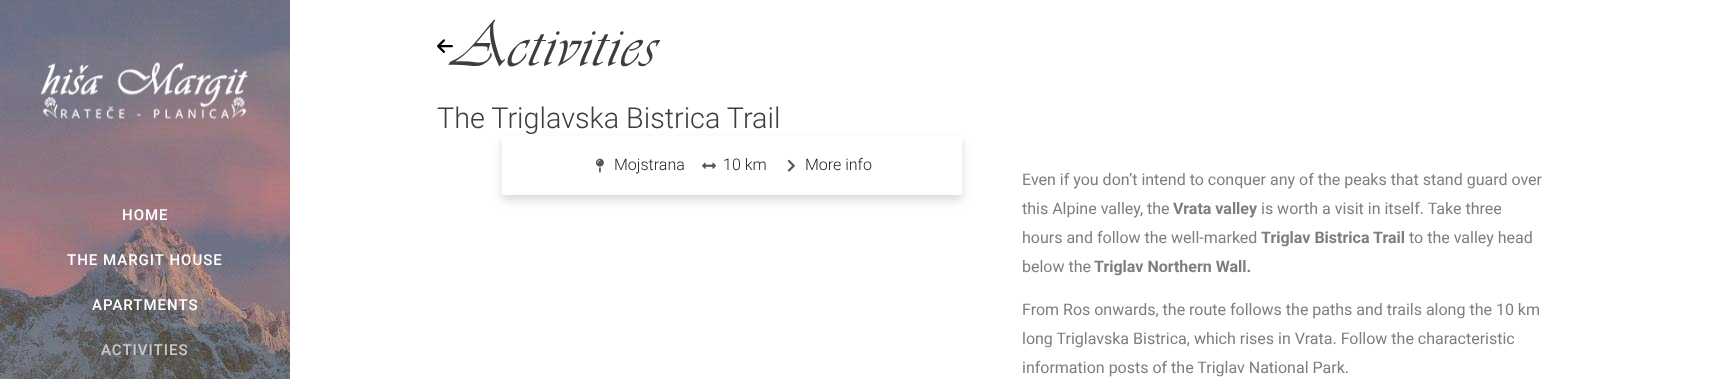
<svg xmlns="http://www.w3.org/2000/svg" width="1723" height="379">
<defs>
<clipPath id="clip1"><path d="M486 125h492v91h-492zm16 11h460v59h-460z" clip-rule="evenodd"/></clipPath>
</defs>
<rect width="100%" height="100%" fill="#fff"/>
<image x="0" y="0" width="290" height="379" href="media/1.png"/>
<image x="40" y="62" width="208" height="57" href="media/2.png"/>
<text x="122" y="220" style="font-family:Roboto;font-size:15px;font-weight:500;letter-spacing:1px;fill:#fff">HOME</text>
<text x="67" y="265" style="font-family:Roboto;font-size:15px;font-weight:500;letter-spacing:1px;fill:#fff">THE MARGIT HOUSE</text>
<text x="92" y="310" style="font-family:Roboto;font-size:15px;font-weight:500;letter-spacing:1px;fill:#fff">APARTMENTS</text>
<text x="101" y="355" style="font-family:Roboto;font-size:15px;font-weight:500;letter-spacing:1px;fill:#cbcbcb">ACTIVITIES</text>
<text x="453" y="66" style="font-family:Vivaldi;font-size:64px;font-style:italic;letter-spacing:2px;fill:#3e3d3d">Activities</text>
<image x="437" y="39" width="16" height="14" href="media/3.png"/>
<text x="437" y="128" style="font-family:Roboto;font-size:28.75px;font-weight:300;fill:#3e3d3d">The Triglavska Bistrica Trail</text>
<g clip-path="url(#clip1)">
<rect x="502" y="141" width="460" height="59" fill="#00000026" filter="blur(5px)"/>
</g>
<image x="596" y="158" width="8" height="15" href="media/4.png"/>
<text x="614" y="170" style="font-family:Roboto;font-size:16px;font-weight:300;fill:#1d1d1b">Mojstrana</text>
<image x="702" y="162" width="14" height="7" href="media/5.png"/>
<text x="723" y="170" style="font-family:Roboto;font-size:16px;font-weight:300;fill:#1d1d1b">10 km</text>
<image x="787" y="159" width="8" height="13" href="media/6.png"/>
<text x="805" y="170" style="font-family:Roboto;font-size:16px;font-weight:300;fill:#1d1d1b">More info</text>
<text x="1022" y="185" style="font-family:Roboto;font-size:16px;fill:#7e7e7e">Even if you don’t intend to conquer any of the peaks that stand guard over</text>
<text x="1022" y="214" style="font-family:Roboto;font-size:16px;fill:#7e7e7e">this Alpine valley, the</text>
<text x="1173" y="214" style="font-family:Roboto;font-size:16px;font-weight:bold;fill:#7e7e7e">Vrata valley</text>
<text x="1261" y="214" style="font-family:Roboto;font-size:16px;fill:#7e7e7e">is worth a visit in itself. Take three</text>
<text x="1022" y="243" style="font-family:Roboto;font-size:16px;fill:#7e7e7e">hours and follow the well-marked</text>
<text x="1261" y="243" style="font-family:Roboto;font-size:16px;font-weight:bold;fill:#7e7e7e">Triglav Bistrica Trail</text>
<text x="1409" y="243" style="font-family:Roboto;font-size:16px;fill:#7e7e7e">to the valley head</text>
<text x="1022" y="272" style="font-family:Roboto;font-size:16px;fill:#7e7e7e">below the</text>
<text x="1094" y="272" style="font-family:Roboto;font-size:16px;font-weight:bold;fill:#7e7e7e">Triglav Northern Wall.</text>
<text x="1022" y="315" style="font-family:Roboto;font-size:16px;fill:#7e7e7e">From Ros onwards, the route follows the paths and trails along the 10 km</text>
<text x="1022" y="344" style="font-family:Roboto;font-size:16px;fill:#7e7e7e">long Triglavska Bistrica, which rises in Vrata. Follow the characteristic</text>
<text x="1022" y="373" style="font-family:Roboto;font-size:16px;fill:#7e7e7e">information posts of the Triglav National Park.</text>
</svg>
